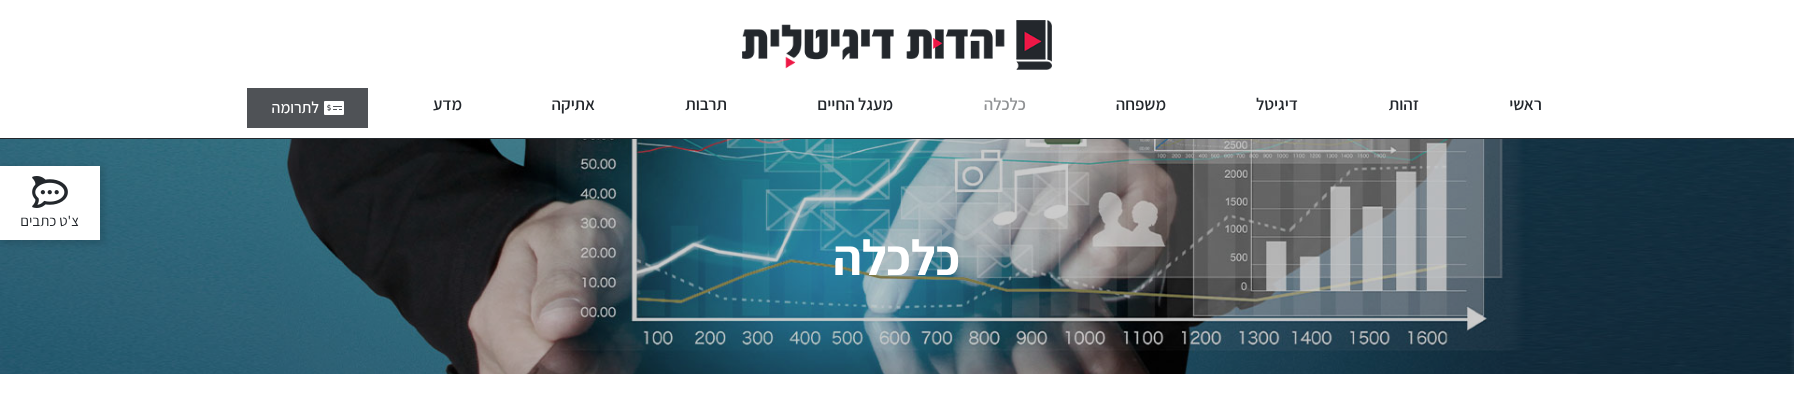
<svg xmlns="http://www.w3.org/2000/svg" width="1794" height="405">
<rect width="100%" height="100%" fill="#fff"/>
<rect y="138" width="1794" height="1" fill="#23272c"/>
<image x="742" y="20" width="310" height="50" href="media/1.png"/>
<text x="1542" y="110" style="font-family:Assistant;font-size:17px;font-weight:600;direction:rtl;fill:#23272c">ראשי</text>
<text x="1419" y="110" style="font-family:Assistant;font-size:17px;font-weight:600;direction:rtl;fill:#23272c">זהות</text>
<text x="1298" y="110" style="font-family:Assistant;font-size:17px;font-weight:600;direction:rtl;fill:#23272c">דיגיטל</text>
<text x="1166" y="110" style="font-family:Assistant;font-size:17px;font-weight:600;direction:rtl;fill:#23272c">משפחה</text>
<text x="1026" y="110" style="font-family:Assistant;font-size:17px;font-weight:600;direction:rtl;fill:#919395">כלכלה</text>
<text x="893" y="110" style="font-family:Assistant;font-size:17px;font-weight:600;direction:rtl;fill:#23272c">מעגל החיים</text>
<text x="727" y="110" style="font-family:Assistant;font-size:17px;font-weight:600;direction:rtl;fill:#23272c">תרבות</text>
<text x="595" y="110" style="font-family:Assistant;font-size:17px;font-weight:600;direction:rtl;fill:#23272c">אתיקה</text>
<text x="462" y="110" style="font-family:Assistant;font-size:17px;font-weight:600;direction:rtl;fill:#23272c">מדע</text>
<rect x="247" y="88" width="121" height="40" fill="#4f5256"/>
<image x="324" y="101" width="20" height="14" href="media/2.png"/>
<text x="319" y="113" style="font-family:Assistant;font-size:16px;font-weight:500;direction:rtl;fill:#fff">לתרומה</text>
<image x="0" y="139" width="1794" height="235" href="media/4.png"/>
<rect y="166" width="104" height="78" fill="#0000001f" filter="blur(3px)"/>
<rect y="166" width="100" height="74" fill="#fff"/>
<image x="32" y="176" width="36" height="32" href="media/3.png"/>
<text x="79" y="226" style="font-family:Assistant;font-size:15px;direction:rtl;fill:#23272c">צ'ט כתבים</text>
<text x="960" y="275" style="font-family:Assistant;font-size:50px;font-weight:bold;direction:rtl;fill:#fff">כלכלה</text>
</svg>
